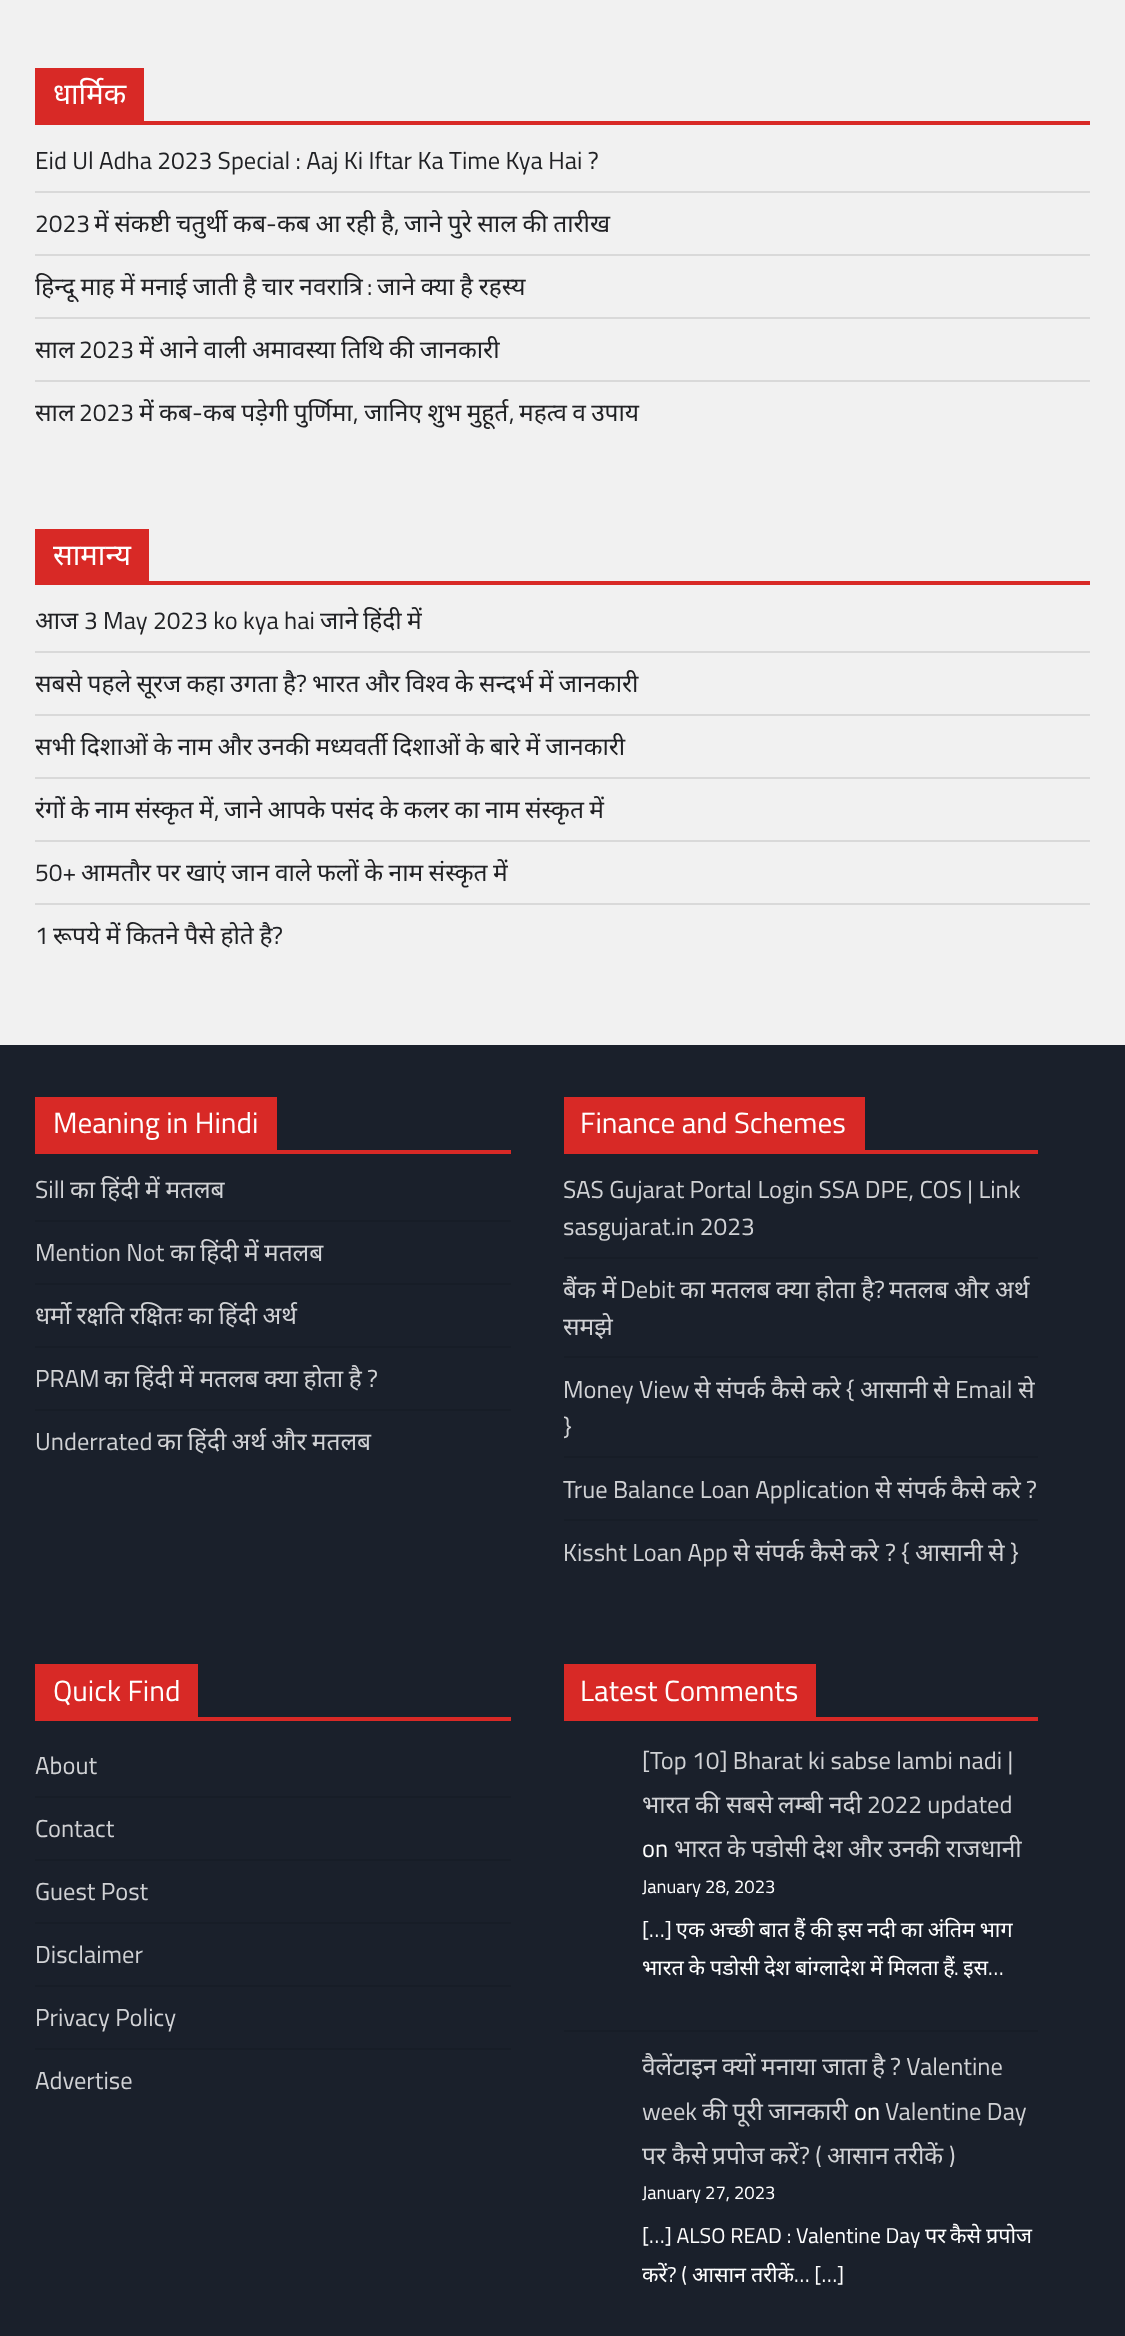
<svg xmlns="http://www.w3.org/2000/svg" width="1125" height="2336">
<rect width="100%" height="100%" fill="#f1f1f1"/>
<rect x="35" y="121" width="1055" height="4" fill="#d82926"/>
<rect x="35" y="68" width="109" height="53" fill="#d82926"/>
<text x="53" y="104" style="font-family:Noto Sans;font-size:29.25px;fill:#fff">धार्मिक</text>
<rect x="35" y="191" width="1055" height="2" fill="#d9d9d9"/>
<text x="35" y="169" style="font-family:Titillium Web;font-size:24.5px;fill:#202124">Eid Ul Adha 2023 Special : Aaj Ki Iftar Ka Time Kya Hai ?</text>
<rect x="35" y="254" width="1055" height="2" fill="#d9d9d9"/>
<text x="35" y="232" style="font-family:Titillium Web;font-size:24.5px;fill:#202124">2023</text>
<text x="94" y="232" word-spacing="-0.75" style="font-family:Noto Sans;font-size:24.5px;fill:#202124">में संकष्टी चतुर्थी कब</text>
<text x="266" y="232" style="font-family:Titillium Web;font-size:24.5px;fill:#202124">-</text>
<text x="277" y="232" word-spacing="-0.75" style="font-family:Noto Sans;font-size:24.5px;fill:#202124">कब आ रही है</text>
<text x="404" y="232" word-spacing="-0.75" style="font-family:Noto Sans;font-size:24.5px;fill:#202124">जाने पुरे साल की तारीख</text>
<text x="394" y="232" style="font-family:Titillium Web;font-size:24.5px;fill:#202124">,</text>
<rect x="35" y="317" width="1055" height="2" fill="#d9d9d9"/>
<text x="35" y="295" word-spacing="-0.75" style="font-family:Noto Sans;font-size:24.5px;fill:#202124">हिन्दू माह में मनाई जाती है चार नवरात्रि</text>
<text x="367" y="295" style="font-family:Titillium Web;font-size:24.5px;fill:#202124">:</text>
<text x="377" y="295" word-spacing="-0.75" style="font-family:Noto Sans;font-size:24.5px;fill:#202124">जाने क्या है रहस्य</text>
<rect x="35" y="380" width="1055" height="2" fill="#d9d9d9"/>
<text x="35" y="358" style="font-family:Noto Sans;font-size:24.5px;fill:#202124">साल</text>
<text x="79" y="358" style="font-family:Titillium Web;font-size:24.5px;fill:#202124">2023</text>
<text x="139" y="358" word-spacing="-0.75" style="font-family:Noto Sans;font-size:24.5px;fill:#202124">में आने वाली अमावस्या तिथि की जानकारी</text>
<text x="35" y="421" style="font-family:Noto Sans;font-size:24.5px;fill:#202124">साल</text>
<text x="79" y="421" style="font-family:Titillium Web;font-size:24.5px;fill:#202124">2023</text>
<text x="139" y="421" word-spacing="-1" style="font-family:Noto Sans;font-size:24.5px;fill:#202124">में कब</text>
<text x="192" y="421" style="font-family:Titillium Web;font-size:24.5px;fill:#202124">-</text>
<text x="203" y="421" word-spacing="-1" style="font-family:Noto Sans;font-size:24.5px;fill:#202124">कब पड़ेगी पुर्णिमा</text>
<text x="364" y="421" word-spacing="-1" style="font-family:Noto Sans;font-size:24.5px;fill:#202124">जानिए शुभ मुहूर्त</text>
<text x="519" y="421" word-spacing="-1" style="font-family:Noto Sans;font-size:24.5px;fill:#202124">महत्व व उपाय</text>
<text x="353" y="421" style="font-family:Titillium Web;font-size:24.5px;fill:#202124">,</text>
<text x="509" y="421" style="font-family:Titillium Web;font-size:24.5px;fill:#202124">,</text>
<rect x="35" y="581" width="1055" height="4" fill="#d82926"/>
<rect x="35" y="529" width="114" height="52" fill="#d82926"/>
<text x="53" y="565" style="font-family:Noto Sans;font-size:29.25px;fill:#fff">सामान्य</text>
<rect x="35" y="651" width="1055" height="2" fill="#d9d9d9"/>
<text x="35" y="629" style="font-family:Noto Sans;font-size:24.5px;fill:#202124">आज</text>
<text x="84" y="629" style="font-family:Titillium Web;font-size:24.5px;fill:#202124">3 May 2023 ko kya hai</text>
<text x="320" y="629" style="font-family:Noto Sans;font-size:24.5px;fill:#202124">जाने</text>
<text x="363" y="629" style="font-family:Noto Sans;font-size:24.5px;fill:#202124">हिंदी</text>
<text x="407" y="629" style="font-family:Noto Sans;font-size:24.5px;fill:#202124">में</text>
<rect x="35" y="714" width="1055" height="2" fill="#d9d9d9"/>
<text x="35" y="692" word-spacing="-1" style="font-family:Noto Sans;font-size:24.5px;fill:#202124">सबसे पहले सूरज कहा उगता है</text>
<text x="296" y="692" style="font-family:Titillium Web;font-size:24.5px;fill:#202124">?</text>
<text x="312" y="692" word-spacing="-1" style="font-family:Noto Sans;font-size:24.5px;fill:#202124">भारत और विश्व के सन्दर्भ में जानकारी</text>
<rect x="35" y="777" width="1055" height="2" fill="#d9d9d9"/>
<text x="35" y="755" word-spacing="-1" style="font-family:Noto Sans;font-size:24.5px;fill:#202124">सभी दिशाओं के नाम और उनकी मध्यवर्ती दिशाओं के बारे में जानकारी</text>
<rect x="35" y="840" width="1055" height="2" fill="#d9d9d9"/>
<text x="35" y="818" word-spacing="-1" style="font-family:Noto Sans;font-size:24.5px;fill:#202124">रंगों के नाम संस्कृत में</text>
<text x="214" y="818" style="font-family:Titillium Web;font-size:24.5px;fill:#202124">,</text>
<text x="224" y="818" word-spacing="-1" style="font-family:Noto Sans;font-size:24.5px;fill:#202124">जाने आपके पसंद के कलर का नाम संस्कृत में</text>
<rect x="35" y="903" width="1055" height="2" fill="#d9d9d9"/>
<text x="35" y="881" style="font-family:Titillium Web;font-size:24.5px;fill:#202124">50+</text>
<text x="81" y="881" word-spacing="-0.9" style="font-family:Noto Sans;font-size:24.5px;fill:#202124">आमतौर पर खाएं जान वाले फलों के नाम संस्कृत में</text>
<text x="35" y="944" style="font-family:Titillium Web;font-size:24.5px;fill:#202124">1</text>
<text x="53" y="944" word-spacing="-0.75" style="font-family:Noto Sans;font-size:24.5px;fill:#202124">रूपये में कितने पैसे होते है</text>
<text x="272" y="944" style="font-family:Titillium Web;font-size:24.5px;fill:#202124">?</text>
<rect y="1045" width="1125" height="1291" fill="#1a202b"/>
<rect x="35" y="1150" width="476" height="4" fill="#d82926"/>
<rect x="35" y="1097" width="242" height="53" fill="#d82926"/>
<text x="53" y="1133" style="font-family:Titillium Web;font-size:29.25px;fill:#fff">Meaning in Hindi</text>
<rect x="35" y="1220" width="476" height="2" fill="#171d27"/>
<text x="35" y="1198" style="font-family:Titillium Web;font-size:24.5px;fill:#d1d2d5">Sill</text>
<text x="70" y="1198" word-spacing="-0.75" style="font-family:Noto Sans;font-size:24.5px;fill:#d1d2d5">का हिंदी में मतलब</text>
<rect x="35" y="1283" width="476" height="2" fill="#171d27"/>
<text x="35" y="1261" style="font-family:Titillium Web;font-size:24.5px;fill:#d1d2d5">Mention Not</text>
<text x="170" y="1261" style="font-family:Noto Sans;font-size:24.5px;fill:#d1d2d5">का</text>
<text x="200" y="1261" style="font-family:Noto Sans;font-size:24.5px;fill:#d1d2d5">हिंदी</text>
<text x="244" y="1261" style="font-family:Noto Sans;font-size:24.5px;fill:#d1d2d5">में</text>
<text x="264" y="1261" style="font-family:Noto Sans;font-size:24.5px;fill:#d1d2d5">मतलब</text>
<rect x="35" y="1346" width="476" height="2" fill="#171d27"/>
<text x="35" y="1324" word-spacing="-1" style="font-family:Noto Sans;font-size:24.5px;fill:#d1d2d5">धर्मो रक्षति रक्षितः का हिंदी अर्थ</text>
<rect x="35" y="1409" width="476" height="2" fill="#171d27"/>
<text x="35" y="1387" style="font-family:Titillium Web;font-size:24.5px;fill:#d1d2d5">PRAM</text>
<text x="104" y="1387" word-spacing="-0.75" style="font-family:Noto Sans;font-size:24.5px;fill:#d1d2d5">का हिंदी में मतलब क्या होता है</text>
<text x="367" y="1387" style="font-family:Titillium Web;font-size:24.5px;fill:#d1d2d5">?</text>
<text x="35" y="1450" style="font-family:Titillium Web;font-size:24.5px;fill:#d1d2d5">Underrated</text>
<text x="157" y="1450" word-spacing="-1" style="font-family:Noto Sans;font-size:24.5px;fill:#d1d2d5">का हिंदी अर्थ और मतलब</text>
<rect x="564" y="1150" width="474" height="4" fill="#d82926"/>
<rect x="564" y="1097" width="301" height="53" fill="#d82926"/>
<text x="580" y="1133" style="font-family:Titillium Web;font-size:29.25px;fill:#fff">Finance and Schemes</text>
<rect x="564" y="1257" width="474" height="2" fill="#171d27"/>
<text x="563" y="1198" style="font-family:Titillium Web;font-size:24.5px;fill:#d1d2d5">SAS Gujarat Portal Login SSA DPE, COS | Link</text>
<text x="563" y="1235" style="font-family:Titillium Web;font-size:24.5px;fill:#d1d2d5">sasgujarat.in 2023</text>
<rect x="564" y="1356" width="474" height="2" fill="#171d27"/>
<text x="563" y="1298" word-spacing="-0.5" style="font-family:Noto Sans;font-size:24.5px;fill:#d1d2d5">बैंक में</text>
<text x="620" y="1298" style="font-family:Titillium Web;font-size:24.5px;fill:#d1d2d5">Debit</text>
<text x="680" y="1298" word-spacing="-0.5" style="font-family:Noto Sans;font-size:24.5px;fill:#d1d2d5">का मतलब क्या होता है</text>
<text x="874" y="1298" style="font-family:Titillium Web;font-size:24.5px;fill:#d1d2d5">?</text>
<text x="889" y="1298" word-spacing="-0.5" style="font-family:Noto Sans;font-size:24.5px;fill:#d1d2d5">मतलब और अर्थ</text>
<text x="563" y="1335" style="font-family:Noto Sans;font-size:24.5px;fill:#d1d2d5">समझे</text>
<rect x="564" y="1456" width="474" height="2" fill="#171d27"/>
<text x="563" y="1398" style="font-family:Titillium Web;font-size:24.5px;fill:#d1d2d5">Money View</text>
<text x="694" y="1398" style="font-family:Noto Sans;font-size:24.5px;fill:#d1d2d5">से</text>
<text x="716" y="1398" style="font-family:Noto Sans;font-size:24.5px;fill:#d1d2d5">संपर्क</text>
<text x="771" y="1398" style="font-family:Noto Sans;font-size:24.5px;fill:#d1d2d5">कैसे</text>
<text x="812" y="1398" style="font-family:Noto Sans;font-size:24.5px;fill:#d1d2d5">करे</text>
<text x="846" y="1398" style="font-family:Titillium Web;font-size:24.5px;fill:#d1d2d5">{</text>
<text x="860" y="1398" style="font-family:Noto Sans;font-size:24.5px;fill:#d1d2d5">आसानी</text>
<text x="933" y="1398" style="font-family:Noto Sans;font-size:24.5px;fill:#d1d2d5">से</text>
<text x="955" y="1398" style="font-family:Titillium Web;font-size:24.5px;fill:#d1d2d5">Email</text>
<text x="1018" y="1398" style="font-family:Noto Sans;font-size:24.5px;fill:#d1d2d5">से</text>
<text x="563" y="1435" style="font-family:Titillium Web;font-size:24.5px;fill:#d1d2d5">}</text>
<rect x="564" y="1519" width="474" height="2" fill="#171d27"/>
<text x="563" y="1498" style="font-family:Titillium Web;font-size:24.5px;fill:#d1d2d5">True Balance Loan Application</text>
<text x="875" y="1498" style="font-family:Noto Sans;font-size:24.5px;fill:#d1d2d5">से</text>
<text x="897" y="1498" style="font-family:Noto Sans;font-size:24.5px;fill:#d1d2d5">संपर्क</text>
<text x="951" y="1498" style="font-family:Noto Sans;font-size:24.5px;fill:#d1d2d5">कैसे</text>
<text x="992" y="1498" style="font-family:Noto Sans;font-size:24.5px;fill:#d1d2d5">करे</text>
<text x="1026" y="1498" style="font-family:Titillium Web;font-size:24.5px;fill:#d1d2d5">?</text>
<text x="563" y="1561" style="font-family:Titillium Web;font-size:24.5px;fill:#d1d2d5">Kissht Loan App</text>
<text x="733" y="1561" style="font-family:Noto Sans;font-size:24.5px;fill:#d1d2d5">से</text>
<text x="755" y="1561" style="font-family:Noto Sans;font-size:24.5px;fill:#d1d2d5">संपर्क</text>
<text x="810" y="1561" style="font-family:Noto Sans;font-size:24.5px;fill:#d1d2d5">कैसे</text>
<text x="850" y="1561" style="font-family:Noto Sans;font-size:24.5px;fill:#d1d2d5">करे</text>
<text x="885" y="1561" style="font-family:Titillium Web;font-size:24.5px;fill:#d1d2d5">? {</text>
<text x="915" y="1561" style="font-family:Noto Sans;font-size:24.5px;fill:#d1d2d5">आसानी</text>
<text x="988" y="1561" style="font-family:Noto Sans;font-size:24.5px;fill:#d1d2d5">से</text>
<text x="1010" y="1561" style="font-family:Titillium Web;font-size:24.5px;fill:#d1d2d5">}</text>
<rect x="35" y="1717" width="476" height="4" fill="#d82926"/>
<rect x="35" y="1664" width="163" height="53" fill="#d82926"/>
<text x="53" y="1701" style="font-family:Titillium Web;font-size:29.25px;fill:#fff">Quick Find</text>
<rect x="35" y="1796" width="476" height="2" fill="#171d27"/>
<text x="35" y="1774" style="font-family:Titillium Web;font-size:24.5px;fill:#d1d2d5">About</text>
<rect x="35" y="1859" width="476" height="2" fill="#171d27"/>
<text x="35" y="1837" style="font-family:Titillium Web;font-size:24.5px;fill:#d1d2d5">Contact</text>
<rect x="35" y="1922" width="476" height="2" fill="#171d27"/>
<text x="35" y="1900" style="font-family:Titillium Web;font-size:24.5px;fill:#d1d2d5">Guest Post</text>
<rect x="35" y="1985" width="476" height="2" fill="#171d27"/>
<text x="35" y="1963" style="font-family:Titillium Web;font-size:24.5px;fill:#d1d2d5">Disclaimer</text>
<rect x="35" y="2048" width="476" height="2" fill="#171d27"/>
<text x="35" y="2026" style="font-family:Titillium Web;font-size:24.5px;fill:#d1d2d5">Privacy Policy</text>
<text x="35" y="2089" style="font-family:Titillium Web;font-size:24.5px;fill:#d1d2d5">Advertise</text>
<rect x="564" y="1717" width="474" height="4" fill="#d82926"/>
<rect x="564" y="1664" width="252" height="53" fill="#d82926"/>
<text x="580" y="1701" style="font-family:Titillium Web;font-size:29.25px;fill:#fff">Latest Comments</text>
<rect x="564" y="2030" width="474" height="2" fill="#171d27"/>
<text x="642" y="1769" style="font-family:Titillium Web;font-size:24.5px;fill:#d1d2d5">[Top 10] Bharat ki sabse lambi nadi |</text>
<text x="642" y="1813" style="font-family:Noto Sans;font-size:24.5px;fill:#d1d2d5">भारत</text>
<text x="695" y="1813" style="font-family:Noto Sans;font-size:24.5px;fill:#d1d2d5">की</text>
<text x="726" y="1813" style="font-family:Noto Sans;font-size:24.5px;fill:#d1d2d5">सबसे</text>
<text x="778" y="1813" style="font-family:Noto Sans;font-size:24.5px;fill:#d1d2d5">लम्बी</text>
<text x="829" y="1813" style="font-family:Noto Sans;font-size:24.5px;fill:#d1d2d5">नदी</text>
<text x="867" y="1813" style="font-family:Titillium Web;font-size:24.5px;fill:#d1d2d5">2022 updated</text>
<text x="642" y="1857" style="font-family:Titillium Web;font-size:24.5px;fill:#fff">on</text>
<text x="674" y="1857" word-spacing="-1" style="font-family:Noto Sans;font-size:24.5px;fill:#d1d2d5">भारत के पडोसी देश और उनकी राजधानी</text>
<text x="642" y="1893" style="font-family:Titillium Web;font-size:18.5px;fill:#fff">January 28, 2023</text>
<text x="642" y="1937" style="font-family:Titillium Web;font-size:21.5px;fill:#fff">[…]</text>
<text x="676" y="1937" word-spacing="-0.75" style="font-family:Noto Sans;font-size:21.5px;fill:#fff">एक अच्छी बात हैं की इस नदी का अंतिम भाग</text>
<text x="642" y="1975" word-spacing="-0.75" style="font-family:Noto Sans;font-size:21.5px;fill:#fff">भारत के पडोसी देश बांग्लादेश में मिलता हैं</text>
<text x="954" y="1975" style="font-family:Titillium Web;font-size:21.5px;fill:#fff">.</text>
<text x="963" y="1975" style="font-family:Noto Sans;font-size:21.5px;fill:#fff">इस</text>
<text x="988" y="1975" style="font-family:Titillium Web;font-size:21.5px;fill:#fff">…</text>
<text x="642" y="2075" style="font-family:Noto Sans;font-size:24.5px;fill:#d1d2d5">वैलेंटाइन</text>
<text x="722" y="2075" style="font-family:Noto Sans;font-size:24.5px;fill:#d1d2d5">क्यों</text>
<text x="761" y="2075" style="font-family:Noto Sans;font-size:24.5px;fill:#d1d2d5">मनाया</text>
<text x="822" y="2075" style="font-family:Noto Sans;font-size:24.5px;fill:#d1d2d5">जाता</text>
<text x="872" y="2075" style="font-family:Noto Sans;font-size:24.5px;fill:#d1d2d5">है</text>
<text x="890" y="2075" style="font-family:Titillium Web;font-size:24.5px;fill:#d1d2d5">? Valentine</text>
<text x="642" y="2120" style="font-family:Titillium Web;font-size:24.5px;fill:#d1d2d5">week</text>
<text x="702" y="2120" word-spacing="-1" style="font-family:Noto Sans;font-size:24.5px;fill:#d1d2d5">की पूरी जानकारी</text>
<text x="854" y="2120" style="font-family:Titillium Web;font-size:24.5px;fill:#fff">on</text>
<text x="885" y="2120" style="font-family:Titillium Web;font-size:24.5px;fill:#d1d2d5">Valentine Day</text>
<text x="642" y="2164" style="font-family:Noto Sans;font-size:24.5px;fill:#d1d2d5">पर</text>
<text x="672" y="2164" style="font-family:Noto Sans;font-size:24.5px;fill:#d1d2d5">कैसे</text>
<text x="712" y="2164" style="font-family:Noto Sans;font-size:24.5px;fill:#d1d2d5">प्रपोज</text>
<text x="770" y="2164" style="font-family:Noto Sans;font-size:24.5px;fill:#d1d2d5">करें</text>
<text x="799" y="2164" style="font-family:Titillium Web;font-size:24.5px;fill:#d1d2d5">? (</text>
<text x="827" y="2164" style="font-family:Noto Sans;font-size:24.5px;fill:#d1d2d5">आसान</text>
<text x="894" y="2164" style="font-family:Noto Sans;font-size:24.5px;fill:#d1d2d5">तरीकें</text>
<text x="949" y="2164" style="font-family:Titillium Web;font-size:24.5px;fill:#d1d2d5">)</text>
<text x="642" y="2199" style="font-family:Titillium Web;font-size:18.5px;fill:#fff">January 27, 2023</text>
<text x="642" y="2243" style="font-family:Titillium Web;font-size:21.5px;fill:#fff">[…] ALSO READ : Valentine Day</text>
<text x="925" y="2243" style="font-family:Noto Sans;font-size:21.5px;fill:#fff">पर</text>
<text x="950" y="2243" style="font-family:Noto Sans;font-size:21.5px;fill:#fff">कैसे</text>
<text x="986" y="2243" style="font-family:Noto Sans;font-size:21.5px;fill:#fff">प्रपोज</text>
<text x="642" y="2282" style="font-family:Noto Sans;font-size:21.5px;fill:#fff">करें</text>
<text x="667" y="2282" style="font-family:Titillium Web;font-size:21.5px;fill:#fff">? (</text>
<text x="692" y="2282" style="font-family:Noto Sans;font-size:21.5px;fill:#fff">आसान</text>
<text x="751" y="2282" style="font-family:Noto Sans;font-size:21.5px;fill:#fff">तरीकें</text>
<text x="794" y="2282" style="font-family:Titillium Web;font-size:21.5px;fill:#fff">… […]</text>
</svg>
